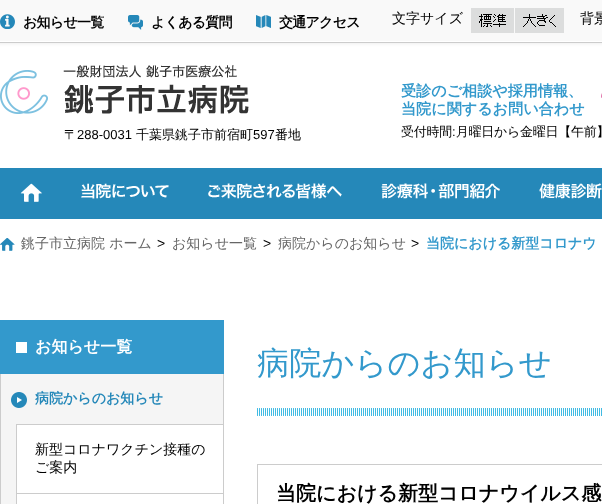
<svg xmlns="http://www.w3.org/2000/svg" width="602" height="504">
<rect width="100%" height="100%" fill="#fff"/>
<rect width="602" height="41" fill="#f9f9f9"/>
<image x="0" y="41" width="602" height="7" href="media/1.png"/>
<image x="0" y="14" width="15" height="15" href="media/2.png"/>
<text x="23" y="27" style="font-family:WenQuanYi Zen Hei;font-size:14px;font-weight:bold;letter-spacing:-0.75px;fill:#000">お知らせ一覧</text>
<image x="128" y="15" width="15" height="15" href="media/3.png"/>
<text x="151" y="27" style="font-family:WenQuanYi Zen Hei;font-size:14px;font-weight:bold;letter-spacing:-0.75px;fill:#000">よくある質問</text>
<image x="256" y="15" width="15" height="13" href="media/4.png"/>
<text x="279" y="27" style="font-family:WenQuanYi Zen Hei;font-size:14px;font-weight:bold;letter-spacing:-0.75px;fill:#000">交通アクセス</text>
<text x="392" y="23" style="font-family:WenQuanYi Zen Hei;font-size:14px;font-weight:500;fill:#000">文字サイズ</text>
<image x="471" y="8" width="43" height="25" href="media/5.png"/>
<image x="515" y="8" width="49" height="25" href="media/6.png"/>
<text x="580" y="23" style="font-family:WenQuanYi Zen Hei;font-size:14px;font-weight:500;fill:#000">背景</text>
<image x="0" y="65" width="249" height="49" href="media/7.png"/>
<text x="64" y="139" style="font-family:WenQuanYi Zen Hei;font-size:13px;font-weight:500;fill:#000">〒</text>
<text x="77" y="139" style="font-family:Liberation Sans;font-size:13px;fill:#000">288-0031</text>
<text x="136" y="139" style="font-family:WenQuanYi Zen Hei;font-size:13px;font-weight:500;fill:#000">千葉県銚子市前宿町</text>
<text x="253" y="139" style="font-family:Liberation Sans;font-size:13px;fill:#000">597</text>
<text x="275" y="139" style="font-family:WenQuanYi Zen Hei;font-size:13px;font-weight:500;fill:#000">番地</text>
<text x="401" y="96" style="font-family:WenQuanYi Zen Hei;font-size:15.1px;font-weight:bold;fill:#39c">受診のご相談や採用情報、</text>
<text x="401" y="114" style="font-family:WenQuanYi Zen Hei;font-size:15.1px;font-weight:bold;fill:#39c">当院に関するお問い合わせ</text>
<image x="601" y="93" width="1" height="5" href="media/8.png"/>
<text x="401" y="136" style="font-family:WenQuanYi Zen Hei;font-size:13px;font-weight:500;letter-spacing:-0.25px;fill:#000">受付時間 月曜日から金曜日【午前】</text>
<text x="452" y="136" style="font-family:Liberation Sans;font-size:13px;letter-spacing:-0.25px;fill:#000">:</text>
<rect y="168" width="602" height="51" fill="#2588b9"/>
<image x="20" y="183" width="22" height="19" href="media/9.png"/>
<image x="81" y="183" width="88" height="16" href="media/10.png"/>
<image x="208" y="183" width="134" height="16" href="media/11.png"/>
<image x="381" y="183" width="119" height="16" href="media/12.png"/>
<image x="539" y="183" width="63" height="16" href="media/13.png"/>
<image x="0" y="238" width="15" height="13" href="media/14.png"/>
<text x="21" y="248" style="font-family:WenQuanYi Zen Hei;font-size:14px;font-weight:500;fill:#666">銚子市立病院 ホーム</text>
<text x="157" y="248" style="font-family:Liberation Sans;font-size:14px;fill:#000">&gt;</text>
<text x="172" y="248" style="font-family:WenQuanYi Zen Hei;font-size:14px;font-weight:500;fill:#666">お知らせ一覧</text>
<text x="263" y="248" style="font-family:Liberation Sans;font-size:14px;fill:#000">&gt;</text>
<text x="278" y="248" style="font-family:WenQuanYi Zen Hei;font-size:14px;font-weight:500;fill:#666">病院からのお知らせ</text>
<text x="411" y="248" style="font-family:Liberation Sans;font-size:14px;fill:#000">&gt;</text>
<text x="426" y="248" style="font-family:WenQuanYi Zen Hei;font-size:14px;font-weight:bold;fill:#39c">当院における新型コロナウ</text>
<rect y="320" width="224" height="54" fill="#39c"/>
<rect x="16" y="342" width="11" height="11" fill="#fff"/>
<text x="35" y="352" style="font-family:WenQuanYi Zen Hei;font-size:16px;font-weight:bold;fill:#fff">お知らせ一覧</text>
<rect x="223" y="374" width="1" height="130" fill="#ccc"/>
<rect y="374" width="1" height="130" fill="#ccc"/>
<rect x="1" y="374" width="222" height="130" fill="#f5f5f5"/>
<image x="11" y="392" width="16" height="16" href="media/15.png"/>
<text x="35" y="403" style="font-family:WenQuanYi Zen Hei;font-size:14px;font-weight:bold;fill:#2588b9">病院からのお知らせ</text>
<rect x="16" y="424" width="1" height="80" fill="#ccc"/>
<rect x="17" y="424" width="206" height="1" fill="#ccc"/>
<rect x="17" y="425" width="206" height="68" fill="#fff"/>
<text x="35" y="454" style="font-family:WenQuanYi Zen Hei;font-size:14px;font-weight:500;fill:#000">新型コロナワクチン接種の</text>
<text x="35" y="472" style="font-family:WenQuanYi Zen Hei;font-size:14px;font-weight:500;fill:#000">ご案内</text>
<rect x="17" y="493" width="206" height="1" fill="#ccc"/>
<rect x="17" y="494" width="206" height="10" fill="#fff"/>
<text x="257" y="374" style="font-family:WenQuanYi Zen Hei;font-size:32.25px;font-weight:500;fill:#39c">病院からのお知らせ</text>
<image x="257" y="408" width="345" height="8" href="media/16.png"/>
<rect x="257.5" y="464.5" width="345" height="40" fill="none" stroke="#ccc"/>
<text x="276" y="500" style="font-family:WenQuanYi Zen Hei;font-size:20px;font-weight:bold;fill:#000">当院における新型コロナウイルス感</text>
</svg>
